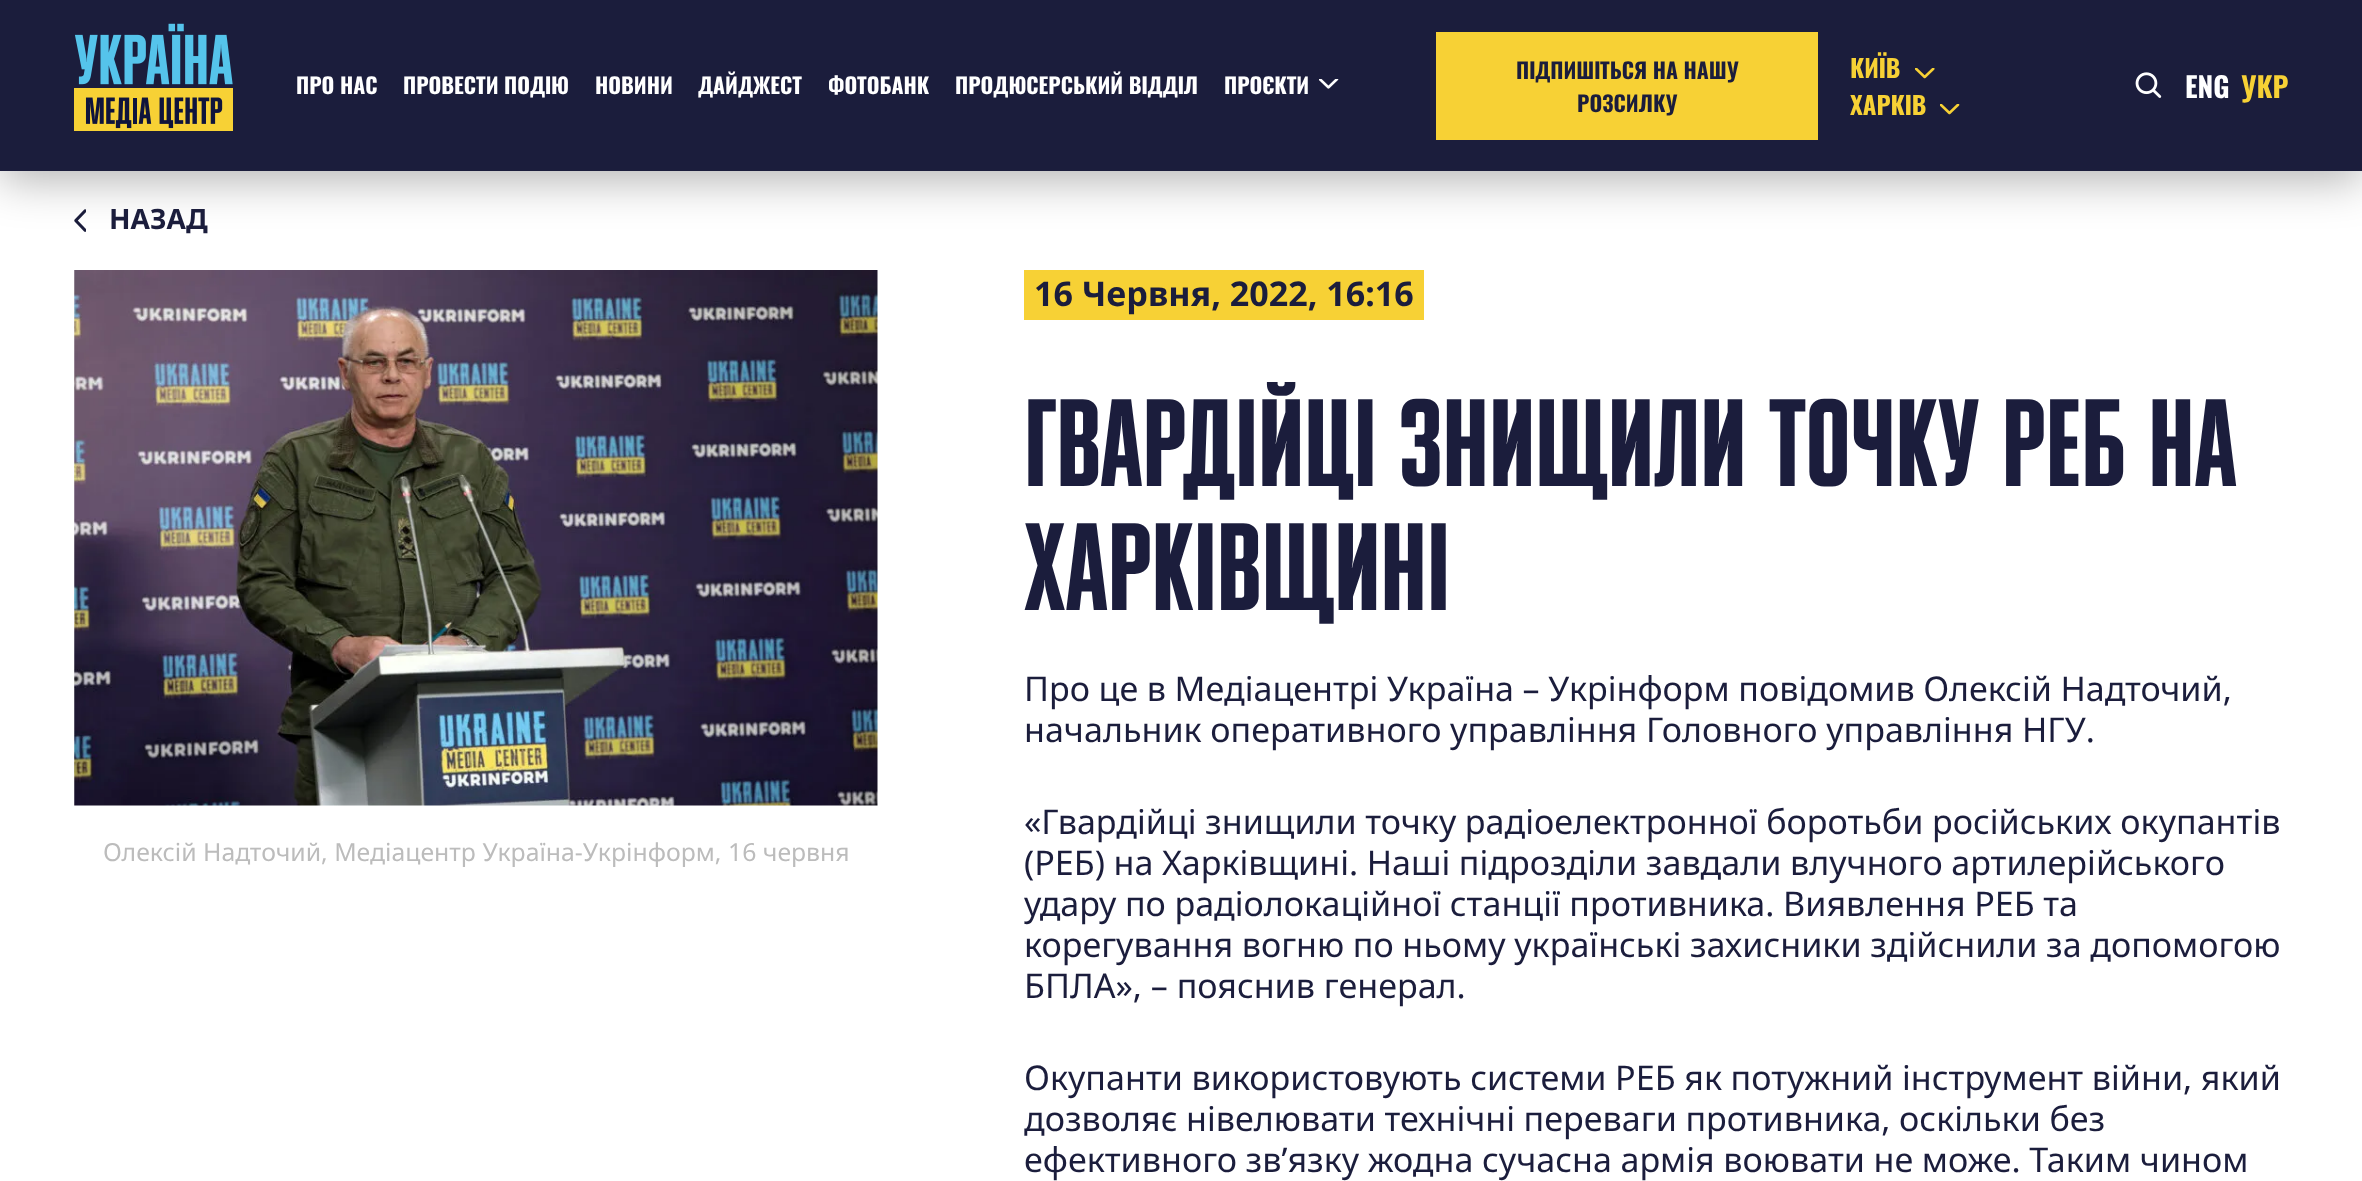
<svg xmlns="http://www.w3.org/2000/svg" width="2362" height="1181">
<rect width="100%" height="100%" fill="#fff"/>
<image x="74" y="209" width="12" height="23" href="media/6.png"/>
<rect y="9" width="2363" height="171" fill="#0000004d" filter="blur(22.5px)"/>
<rect width="2362" height="171" fill="#1b1d3c"/>
<image x="74" y="23" width="159" height="108" href="media/1.png"/>
<text x="296" y="94" style="font-family:Oswald;font-size:21.75px;font-weight:bold;fill:#fff">ПРО НАС</text>
<text x="403" y="94" style="font-family:Oswald;font-size:21.75px;font-weight:bold;fill:#fff">ПРОВЕСТИ ПОДІЮ</text>
<text x="595" y="94" style="font-family:Oswald;font-size:21.75px;font-weight:bold;fill:#fff">НОВИНИ</text>
<text x="698" y="94" style="font-family:Oswald;font-size:21.75px;font-weight:bold;fill:#fff">ДАЙДЖЕСТ</text>
<text x="828" y="94" style="font-family:Oswald;font-size:21.75px;font-weight:bold;fill:#fff">ФОТОБАНК</text>
<text x="955" y="94" style="font-family:Oswald;font-size:21.75px;font-weight:bold;fill:#fff">ПРОДЮСЕРСЬКИЙ ВІДДІЛ</text>
<text x="1224" y="94" style="font-family:Oswald;font-size:21.75px;font-weight:bold;fill:#fff">ПРОЄКТИ</text>
<image x="1319" y="79" width="20" height="10" href="media/2.png"/>
<rect x="1436" y="32" width="382" height="108" fill="#f7d135"/>
<text x="1516" y="79" style="font-family:Oswald;font-size:21.75px;font-weight:bold;fill:#1b1d3c">ПІДПИШІТЬСЯ НА НАШУ</text>
<text x="1577" y="112" style="font-family:Oswald;font-size:21.75px;font-weight:bold;fill:#1b1d3c">РОЗСИЛКУ</text>
<text x="1850" y="78" style="font-family:Oswald;font-size:24.8px;font-weight:bold;fill:#f7d135">КИЇВ</text>
<image x="1915" y="68" width="20" height="11" href="media/3.png"/>
<text x="1850" y="115" style="font-family:Oswald;font-size:24.8px;font-weight:bold;fill:#f7d135">ХАРКІВ</text>
<image x="1940" y="104" width="20" height="11" href="media/4.png"/>
<image x="2135" y="72" width="27" height="26" href="media/5.png"/>
<text x="2185" y="98" style="font-family:Oswald;font-size:28px;font-weight:bold;fill:#fff">ENG</text>
<text x="2241" y="98" style="font-family:Oswald;font-size:28px;font-weight:bold;fill:#f7d135">УКР</text>
<text x="109" y="229" style="font-family:Noto Sans;font-size:28px;font-weight:bold;fill:#1b1d3c">НАЗАД</text>
<image x="74" y="270" width="804" height="536" href="media/7.png"/>
<text x="103" y="861" style="font-family:Noto Sans;font-size:24.8px;fill:#bcbcbc">Олексій Надточий, Медіацентр Україна-Укрінформ, 16 червня</text>
<rect x="1024" y="270" width="400" height="50" fill="#f7d135"/>
<text x="1034" y="306" style="font-family:Noto Sans;font-size:34.1px;font-weight:bold;fill:#1b1d3c">16 Червня, 2022, 16:16</text>
<text x="1024" y="486" style="font-family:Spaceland;font-size:124px;font-weight:bold;fill:#1b1d3c">ГВАРДІЙЦІ ЗНИЩИЛИ ТОЧКУ РЕБ НА</text>
<text x="1024" y="610" style="font-family:Spaceland;font-size:124px;font-weight:bold;fill:#1b1d3c">ХАРКІВЩИНІ</text>
<text x="1024" y="701" word-spacing="-0.25" style="font-family:Noto Sans;font-size:34.1px;fill:#1b1d3c">Про це в Медіацентрі Україна – Укрінформ повідомив Олексій Надточий,</text>
<text x="1024" y="742" word-spacing="-0.25" style="font-family:Noto Sans;font-size:34.1px;fill:#1b1d3c">начальник оперативного управління Головного управління НГУ.</text>
<text x="1024" y="834" word-spacing="-0.25" style="font-family:Noto Sans;font-size:34.1px;fill:#1b1d3c">«Гвардійці знищили точку радіоелектронної боротьби російських окупантів</text>
<text x="1024" y="875" word-spacing="-0.25" style="font-family:Noto Sans;font-size:34.1px;fill:#1b1d3c">(РЕБ) на Харківщині. Наші підрозділи завдали влучного артилерійського</text>
<text x="1024" y="916" word-spacing="-0.25" style="font-family:Noto Sans;font-size:34.1px;fill:#1b1d3c">удару по радіолокаційної станції противника. Виявлення РЕБ та</text>
<text x="1024" y="957" word-spacing="-0.25" style="font-family:Noto Sans;font-size:34.1px;fill:#1b1d3c">корегування вогню по ньому українські захисники здійснили за допомогою</text>
<text x="1024" y="998" style="font-family:Noto Sans;font-size:34.1px;fill:#1b1d3c">БПЛА», – пояснив генерал.</text>
<text x="1024" y="1090" word-spacing="-0.25" style="font-family:Noto Sans;font-size:34.1px;fill:#1b1d3c">Окупанти використовують системи РЕБ як потужний інструмент війни, який</text>
<text x="1024" y="1131" word-spacing="-0.25" style="font-family:Noto Sans;font-size:34.1px;fill:#1b1d3c">дозволяє нівелювати технічні переваги противника, оскільки без</text>
<text x="1024" y="1172" word-spacing="-0.25" style="font-family:Noto Sans;font-size:34.1px;fill:#1b1d3c">ефективного зв’язку жодна сучасна армія воювати не може. Таким чином</text>
</svg>
